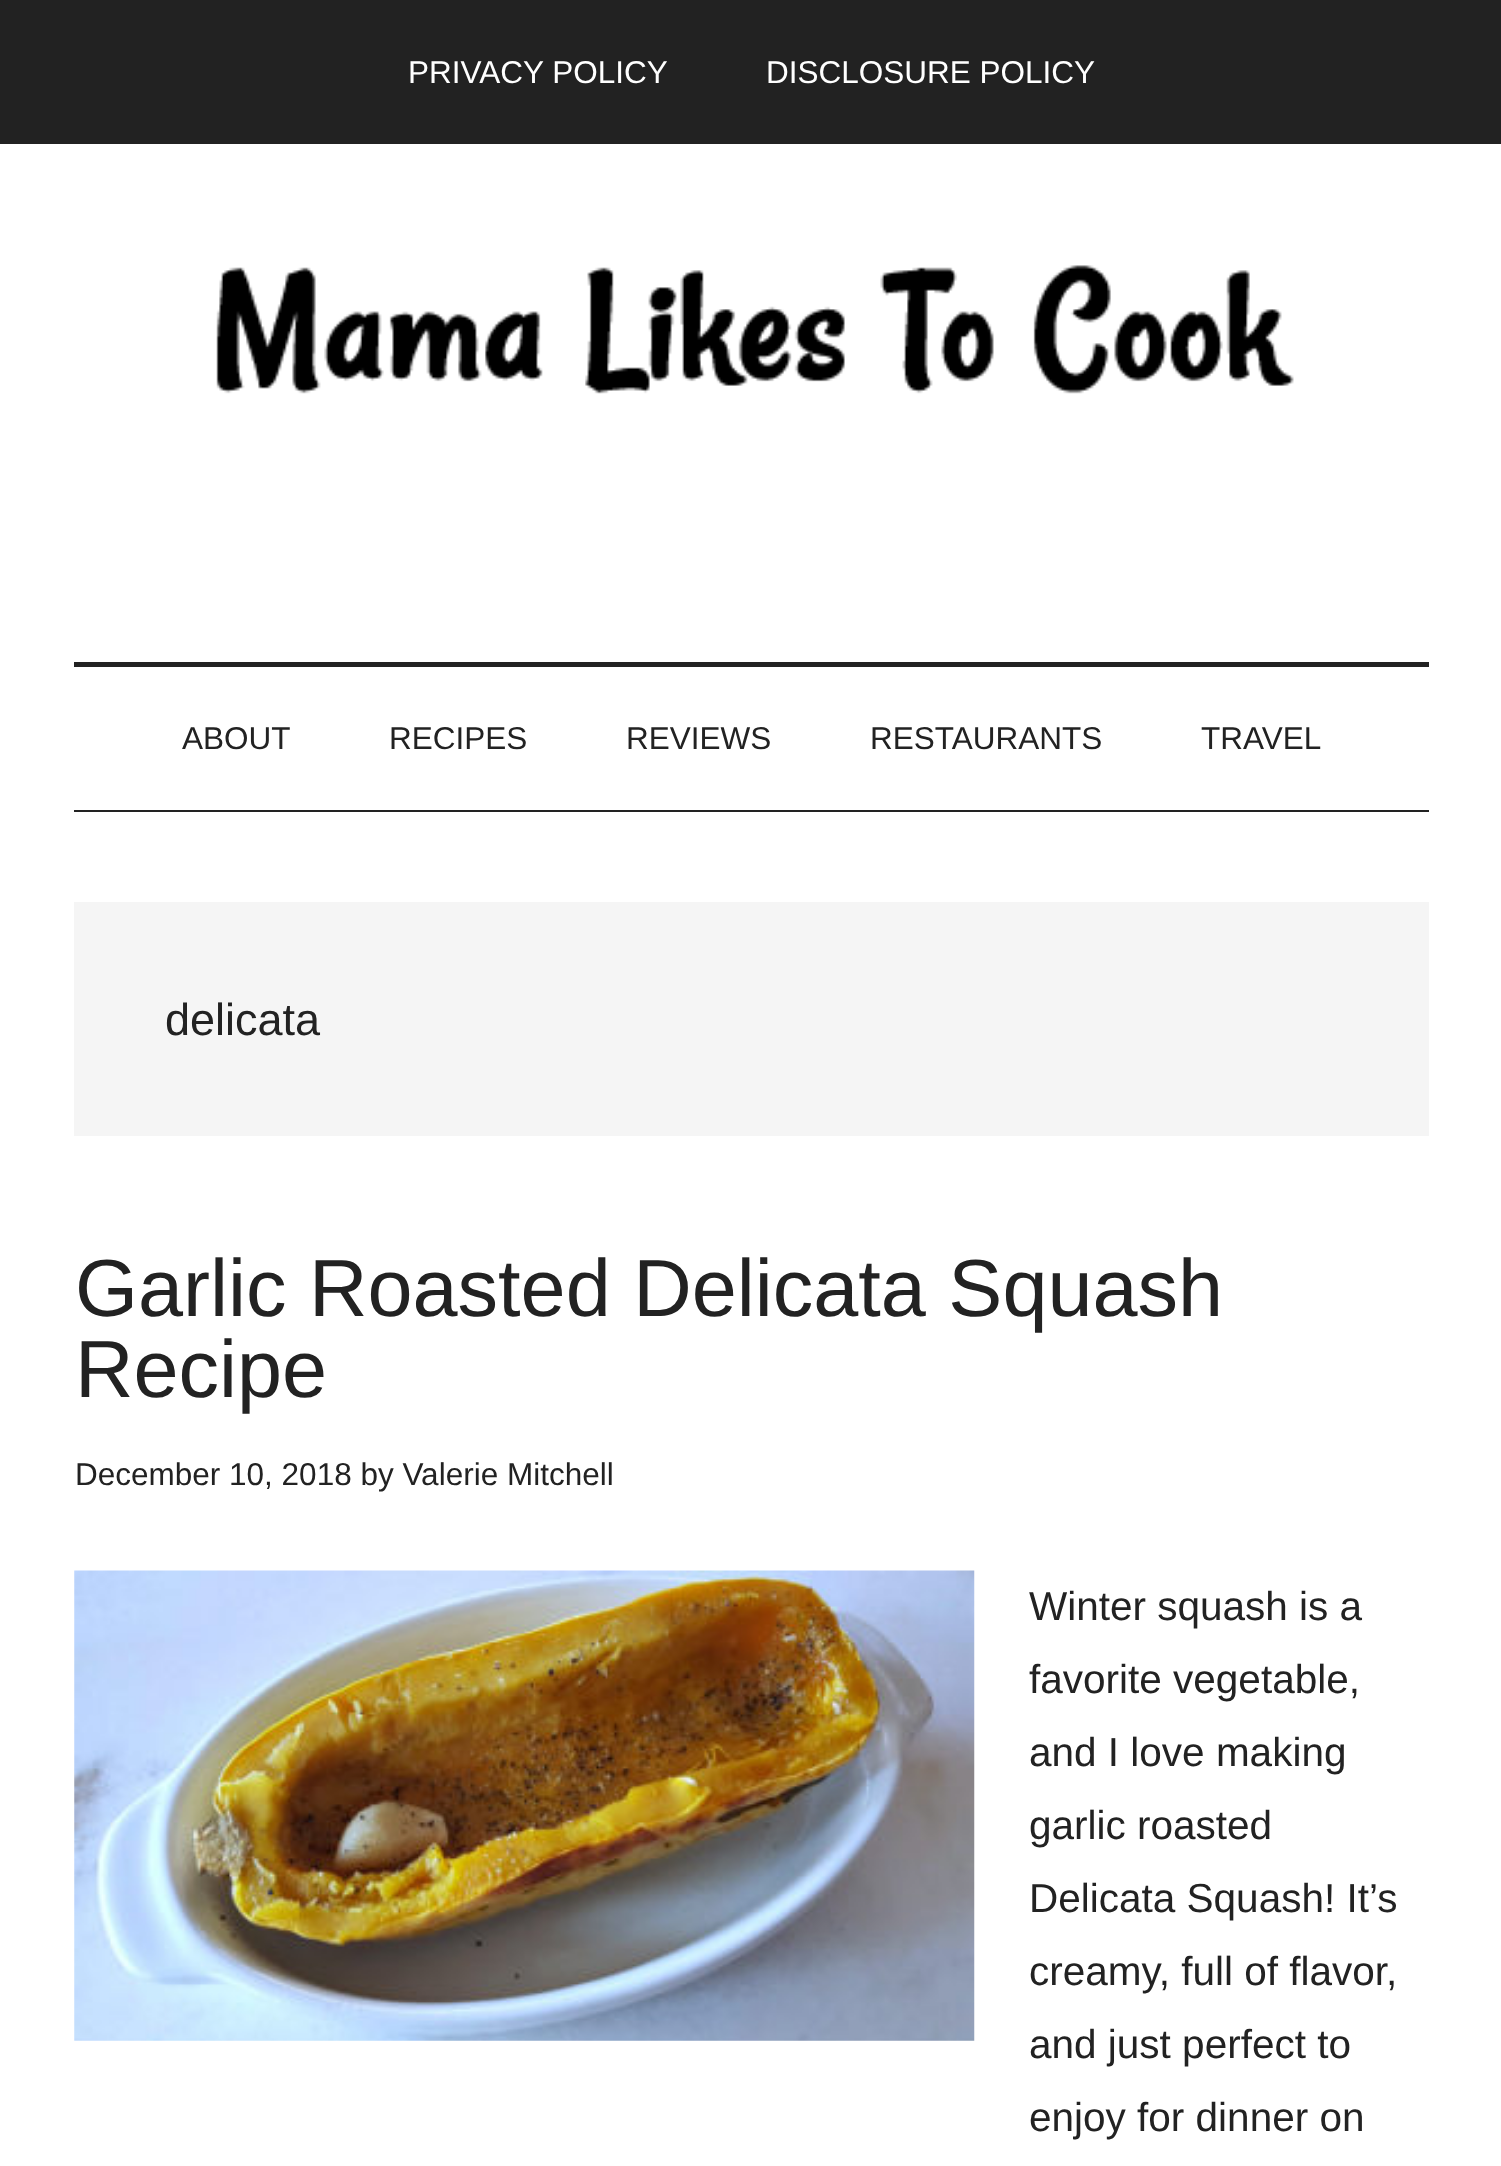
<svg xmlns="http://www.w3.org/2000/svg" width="1501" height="2166">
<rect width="100%" height="100%" fill="#fff"/>
<rect width="1501" height="144" fill="#222"/>
<text x="408" y="83" style="font-family:Liberation Sans;font-size:31.5px;fill:#fff">PRIVACY POLICY</text>
<text x="766" y="83" style="font-family:Liberation Sans;font-size:31.5px;fill:#fff">DISCLOSURE POLICY</text>
<rect x="74" y="662" width="1355" height="5" fill="#222"/>
<image x="216" y="265" width="1078" height="129" href="media/1.png"/>
<rect x="74" y="810" width="1355" height="2" fill="#222"/>
<text x="182" y="749" style="font-family:Liberation Sans;font-size:31.5px;fill:#222">ABOUT</text>
<text x="389" y="749" style="font-family:Liberation Sans;font-size:31.5px;fill:#222">RECIPES</text>
<text x="626" y="749" style="font-family:Liberation Sans;font-size:31.5px;fill:#222">REVIEWS</text>
<text x="870" y="749" style="font-family:Liberation Sans;font-size:31.5px;fill:#222">RESTAURANTS</text>
<text x="1201" y="749" style="font-family:Liberation Sans;font-size:31.5px;fill:#222">TRAVEL</text>
<rect x="74" y="902" width="1355" height="234" fill="#f5f5f5"/>
<text x="165" y="1035" style="font-family:Liberation Sans;font-size:45px;fill:#222">delicata</text>
<text x="75" y="1316" style="font-family:Liberation Sans;font-size:81px;fill:#222">Garlic Roasted Delicata Squash</text>
<text x="75" y="1397" style="font-family:Liberation Sans;font-size:81px;fill:#222">Recipe</text>
<text x="75" y="1485" style="font-family:Liberation Sans;font-size:31.5px;fill:#222">December 10, 2018 by Valerie Mitchell</text>
<image x="74" y="1570" width="901" height="471" href="media/2.png"/>
<text x="1029" y="1620" style="font-family:Liberation Sans;font-size:40.5px;fill:#222">Winter squash is a</text>
<text x="1029" y="1693" style="font-family:Liberation Sans;font-size:40.5px;fill:#222">favorite vegetable,</text>
<text x="1029" y="1766" style="font-family:Liberation Sans;font-size:40.5px;fill:#222">and I love making</text>
<text x="1029" y="1839" style="font-family:Liberation Sans;font-size:40.5px;fill:#222">garlic roasted</text>
<text x="1029" y="1912" style="font-family:Liberation Sans;font-size:40.5px;fill:#222">Delicata Squash! It’s</text>
<text x="1029" y="1985" style="font-family:Liberation Sans;font-size:40.5px;fill:#222">creamy, full of flavor,</text>
<text x="1029" y="2058" style="font-family:Liberation Sans;font-size:40.5px;fill:#222">and just perfect to</text>
<text x="1029" y="2131" style="font-family:Liberation Sans;font-size:40.5px;fill:#222">enjoy for dinner on</text>
</svg>
